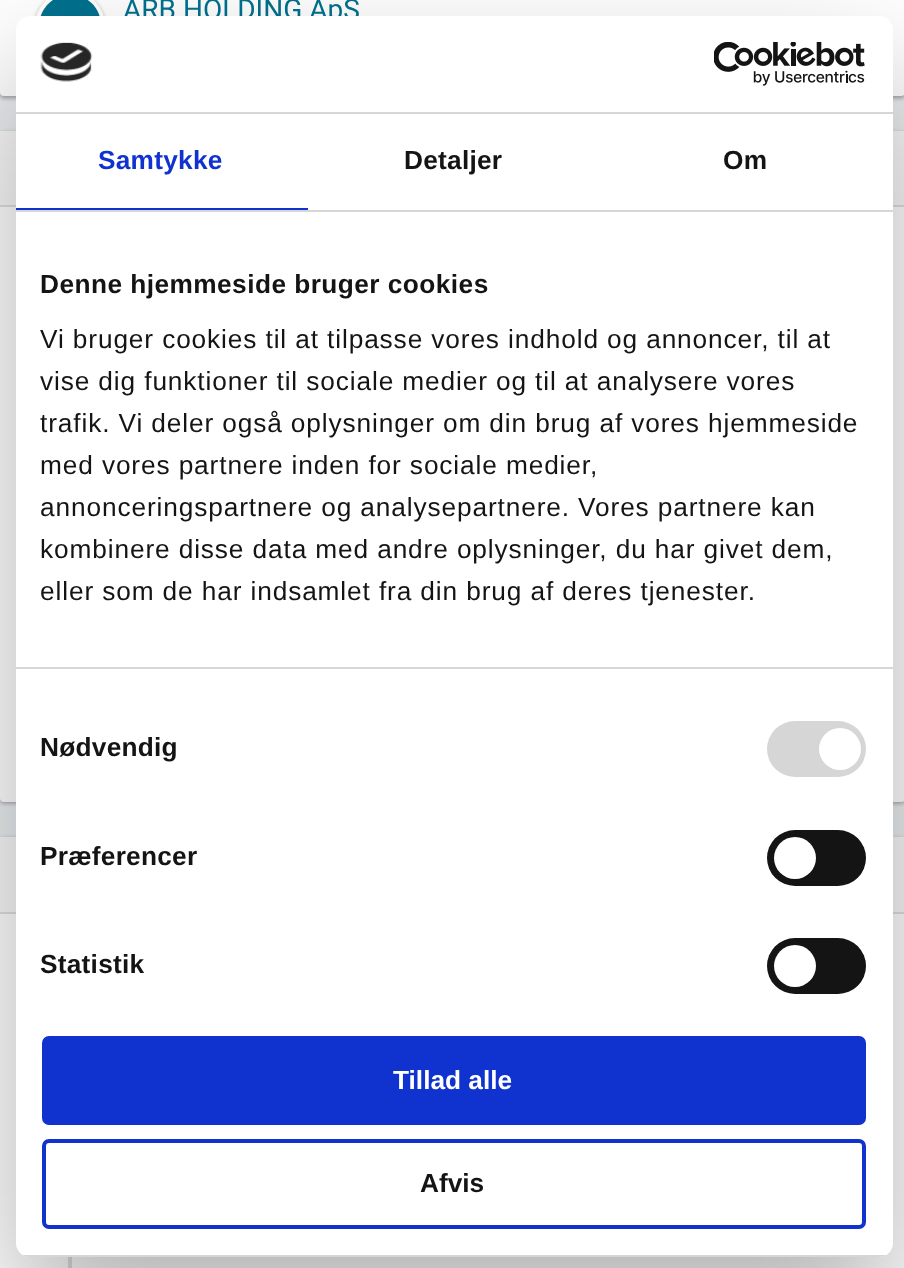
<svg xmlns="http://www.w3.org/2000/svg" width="904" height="1268">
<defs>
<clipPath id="clip1"><rect x="16" y="16" width="877" height="1241" rx="14"/></clipPath>
</defs>
<rect width="100%" height="100%" fill="#eceff1"/>
<rect y="-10" width="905" height="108" rx="4" fill="#0000003d" filter="blur(2px)"/>
<rect y="-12" width="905" height="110" rx="4" fill="#0000001f" filter="blur(2.5px)"/>
<rect y="-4" width="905" height="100" rx="4" fill="#fff"/>
<rect x="35" y="-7" width="70" height="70" rx="35" fill="#0000003d" filter="blur(2px)"/>
<rect x="35" y="-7" width="70" height="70" rx="35" fill="#0000001f" filter="blur(2.5px)"/>
<circle cx="70" cy="26" r="33" fill="none" stroke="#fff" stroke-width="4"/>
<path d="M70-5c40 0 43 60 0 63c-5 0-10-2-15-4c-28-15-17-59 15-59z" fill="#00718f"/>
<text x="123" y="19" style="font-family:Roboto;font-size:28px;fill:#00718f">ARB HOLDING ApS</text>
<rect y="133" width="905" height="670" rx="4" fill="#0000003d" filter="blur(2px)"/>
<rect y="133" width="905" height="670" rx="4" fill="#0000001f" filter="blur(2.5px)"/>
<rect y="131" width="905" height="671" rx="4" fill="#fff"/>
<rect y="131" width="904" height="74" fill="#fafafa"/>
<rect y="205" width="904" height="2" fill="#e0e0e0"/>
<rect y="838" width="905" height="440" rx="4" fill="#0000003d" filter="blur(2px)"/>
<rect y="914" width="904" height="354" fill="#fff"/>
<rect y="837" width="904" height="75" fill="#fafafa"/>
<rect y="912" width="904" height="2" fill="#e0e0e0"/>
<rect x="68" y="1251" width="4" height="17" fill="#e0e0e0"/>
<rect x="16" y="72" width="877" height="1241" rx="14" fill="#0000004d" filter="blur(59.5px)"/>
<rect x="16" y="16" width="877" height="1241" rx="14" fill="#fff"/>
<rect x="16" y="112" width="877" height="2" fill="#d6d6d6"/>
<image x="40" y="42" width="53" height="40" href="media/1.png"/>
<image x="714" y="42" width="151" height="44" href="media/2.png"/>
<rect x="16" y="210" width="877" height="2" fill="#d6d6d6"/>
<rect x="16" y="208" width="292" height="2" fill="#1032cf"/>
<text x="98" y="169" style="font-family:Liberation Sans;font-size:26.25px;font-weight:bold;letter-spacing:0.25px;fill:#1032cf">Samtykke</text>
<text x="404" y="169" style="font-family:Liberation Sans;font-size:26.25px;font-weight:bold;letter-spacing:0.25px;fill:#141414">Detaljer</text>
<text x="723" y="169" style="font-family:Liberation Sans;font-size:26.25px;font-weight:bold;letter-spacing:0.25px;fill:#141414">Om</text>
<rect x="16" y="667" width="877" height="2" fill="#d6d6d6"/>
<text x="40" y="293" style="font-family:Liberation Sans;font-size:26.25px;font-weight:bold;letter-spacing:0.45px;fill:#141414">Denne hjemmeside bruger cookies</text>
<text x="40" y="348" style="font-family:Liberation Sans;font-size:26.25px;letter-spacing:0.88px;fill:#141414">Vi bruger cookies til at tilpasse vores indhold og annoncer, til at</text>
<text x="40" y="390" style="font-family:Liberation Sans;font-size:26.25px;letter-spacing:0.88px;fill:#141414">vise dig funktioner til sociale medier og til at analysere vores</text>
<text x="40" y="432" style="font-family:Liberation Sans;font-size:26.25px;letter-spacing:0.88px;fill:#141414">trafik. Vi deler også oplysninger om din brug af vores hjemmeside</text>
<text x="40" y="474" style="font-family:Liberation Sans;font-size:26.25px;letter-spacing:0.88px;fill:#141414">med vores partnere inden for sociale medier,</text>
<text x="40" y="516" style="font-family:Liberation Sans;font-size:26.25px;letter-spacing:0.88px;fill:#141414">annonceringspartnere og analysepartnere. Vores partnere kan</text>
<text x="40" y="558" style="font-family:Liberation Sans;font-size:26.25px;letter-spacing:0.88px;fill:#141414">kombinere disse data med andre oplysninger, du har givet dem,</text>
<text x="40" y="600" style="font-family:Liberation Sans;font-size:26.25px;letter-spacing:0.88px;fill:#141414">eller som de har indsamlet fra din brug af deres tjenester.</text>
<text x="40" y="756" style="font-family:Liberation Sans;font-size:26.25px;font-weight:bold;letter-spacing:0.25px;fill:#141414">Nødvendig</text>
<rect x="767" y="721" width="99" height="56" rx="28" fill="#d6d6d6"/>
<circle cx="840" cy="749" r="21" fill="#fff"/>
<text x="40" y="865" style="font-family:Liberation Sans;font-size:26.25px;font-weight:bold;letter-spacing:0.25px;fill:#141414">Præferencer</text>
<rect x="767" y="830" width="99" height="56" rx="28" fill="#141414"/>
<circle cx="795" cy="858" r="21" fill="#fff"/>
<text x="40" y="973" style="font-family:Liberation Sans;font-size:26.25px;font-weight:bold;letter-spacing:0.25px;fill:#141414">Statistik</text>
<rect x="767" y="938" width="99" height="56" rx="28" fill="#141414"/>
<circle cx="795" cy="966" r="21" fill="#fff"/>
<g clip-path="url(#clip1)">
<rect x="16" y="1255" width="877" height="2" fill="#d6d6d6"/>
</g>
<rect x="44" y="1038" width="820" height="85" rx="5" fill="#1032cf" stroke="#1032cf" stroke-width="4"/>
<text x="393" y="1089" style="font-family:Liberation Sans;font-size:26.25px;font-weight:bold;fill:#fff">Tillad alle</text>
<rect x="44" y="1141" width="820" height="86" rx="5" fill="none" stroke="#1032cf" stroke-width="4"/>
<text x="420" y="1192" style="font-family:Liberation Sans;font-size:26.25px;font-weight:bold;fill:#141414">Afvis</text>
</svg>
